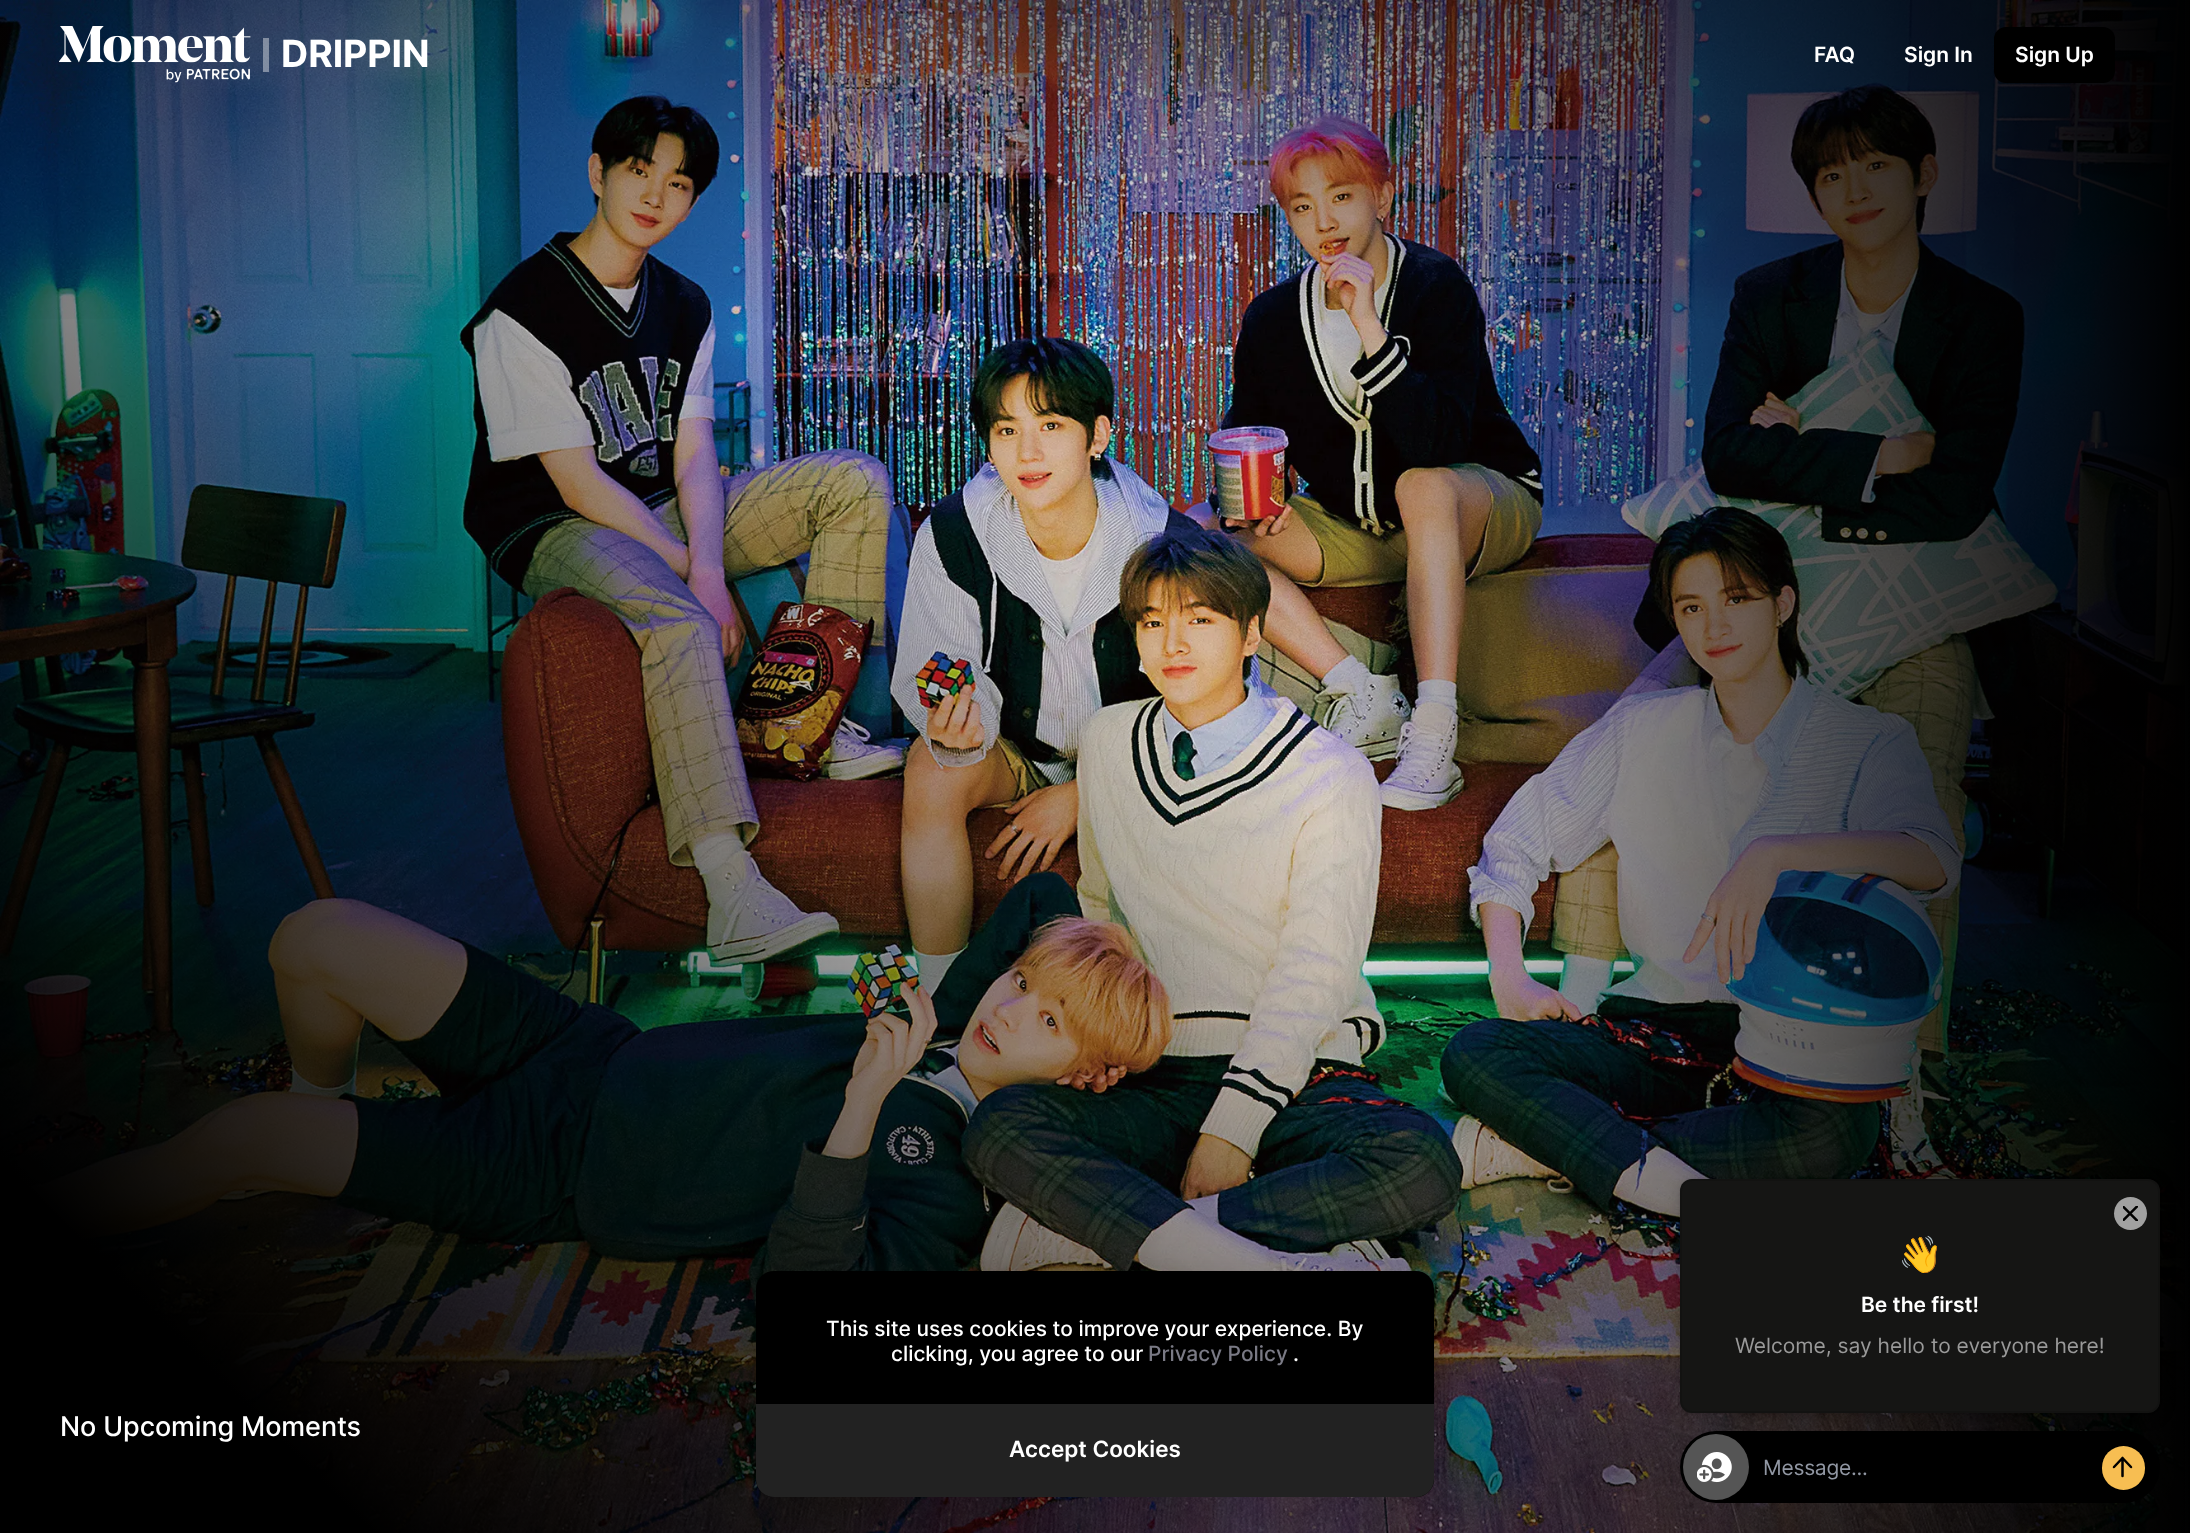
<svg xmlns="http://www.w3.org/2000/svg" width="2190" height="1533">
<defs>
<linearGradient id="g1" gradientUnits="userSpaceOnUse" x1="1095" y1="0" x2="1095" y2="336"><stop offset="0" stop-color="#000" stop-opacity="0.42"/><stop offset="1" stop-color="#000" stop-opacity="0"/></linearGradient>
<linearGradient id="g2" gradientUnits="userSpaceOnUse" x1="164" y1="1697" x2="2026" y2="-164"><stop offset="0.1" stop-color="#000"/><stop offset="0.55" stop-color="#000" stop-opacity="0"/></linearGradient>
<linearGradient id="g3" gradientUnits="userSpaceOnUse" x1="2190" y1="767" x2="0" y2="766"><stop offset="0" stop-color="#000"/><stop offset="0.4" stop-color="#000" stop-opacity="0"/></linearGradient>
<clipPath id="clip1"><rect x="2123" y="1206" width="15" height="15"/></clipPath>
</defs>
<rect width="100%" height="100%" fill="#fff"/>
<image x="0" y="0" width="2185" height="1533" href="media/1.png"/>
<rect width="2185" height="319" fill="url(#g1)"/>
<rect width="1996" height="1533" fill="url(#g2)"/>
<rect x="263" y="38" width="6" height="34" fill="#ffffff66"/>
<text x="281" y="67" style="font-family:Inter;font-size:37.5px;font-weight:bold;letter-spacing:-0.1px;fill:#fff">DRIPPIN</text>
<image x="59" y="26" width="192" height="57" href="media/2.png"/>
<rect x="1333" width="857" height="1533" fill="url(#g3)"/>
<text x="1814" y="62" style="font-family:Inter;font-size:21px;font-weight:600;fill:#fff">FAQ</text>
<text x="1904" y="62" style="font-family:Inter;font-size:21px;font-weight:600;fill:#fff">Sign In</text>
<rect x="1994" y="27" width="121" height="56" rx="12" fill="#000"/>
<text x="2015" y="62" style="font-family:Inter;font-size:21px;font-weight:600;fill:#fff">Sign Up</text>
<rect x="753" y="1280" width="696" height="244" rx="27" fill="#00000033" filter="blur(30px)"/>
<rect x="756" y="1271" width="678" height="226" rx="18" fill="#000"/>
<text x="826" y="1336" style="font-family:Inter;font-size:21px;font-weight:500;fill:#fff">This site uses cookies to improve your experience. By</text>
<text x="891" y="1361" style="font-family:Inter;font-size:21px;font-weight:500;fill:#fff">clicking, you agree to our</text>
<text x="1148" y="1361" style="font-family:Inter;font-size:21px;font-weight:500;fill:#7a7a85">Privacy Policy</text>
<text x="1293" y="1361" style="font-family:Inter;font-size:21px;font-weight:500;fill:#fff">.</text>
<path d="M756 1404h678v75c0 10-8 18-18 18h-642c-10 0-18-8-18-18z" fill="#222"/>
<text x="1009" y="1457" style="font-family:Inter;font-size:22.5px;font-weight:600;fill:#fff">Accept Cookies</text>
<text x="60" y="1436" style="font-family:Inter;font-size:27px;font-weight:500;letter-spacing:-0.1px;fill:#fff">No Upcoming Moments</text>
<rect x="1680" y="1431" width="480" height="72" rx="36" fill="#000"/>
<circle cx="1716" cy="1467" r="33" fill="#555"/>
<image x="1697" y="1452" width="35" height="31" href="media/3.png"/>
<text x="1763" y="1475" style="font-family:Inter;font-size:21px;letter-spacing:-0.25px;fill:#9197a3">Message...</text>
<rect x="2102" y="1446" width="43" height="44" rx="21.5" fill="#f7be52"/>
<path d="M2122.5 1476v-18m-8.5 9l8.5-9l8.5 9" fill="none" stroke="#000" stroke-width="2.5" stroke-linecap="round" stroke-linejoin="round"/>
<rect x="1680" y="1182" width="480" height="234" rx="12" fill="#00000033" filter="blur(7.5px)"/>
<rect x="1680" y="1179" width="480" height="234" rx="12" fill="#0000001a" filter="blur(1px)"/>
<rect x="1680" y="1179" width="480" height="234" rx="12" fill="#151514"/>
<rect x="1681" y="1180" width="478" height="232" rx="11" fill="none" stroke="#0000001a" stroke-width="2"/>
<circle cx="2130.5" cy="1213.5" r="16.5" fill="#a1a1a1"/>
<g clip-path="url(#clip1)">
<path d="M2137.5 1206l-15 15m0-15l15 15" fill="none" stroke="#000" stroke-width="2.5" stroke-linecap="round" stroke-linejoin="round"/>
</g>
<text x="1898" y="1267" style="font-family:Noto Color Emoji;font-size:36px;fill:#fff">👋</text>
<text x="1861" y="1312" style="font-family:Inter;font-size:21px;font-weight:600;fill:#fff">Be the first!</text>
<text x="1735" y="1353" style="font-family:Inter;font-size:21px;fill:#999">Welcome, say hello to everyone here!</text>
</svg>
